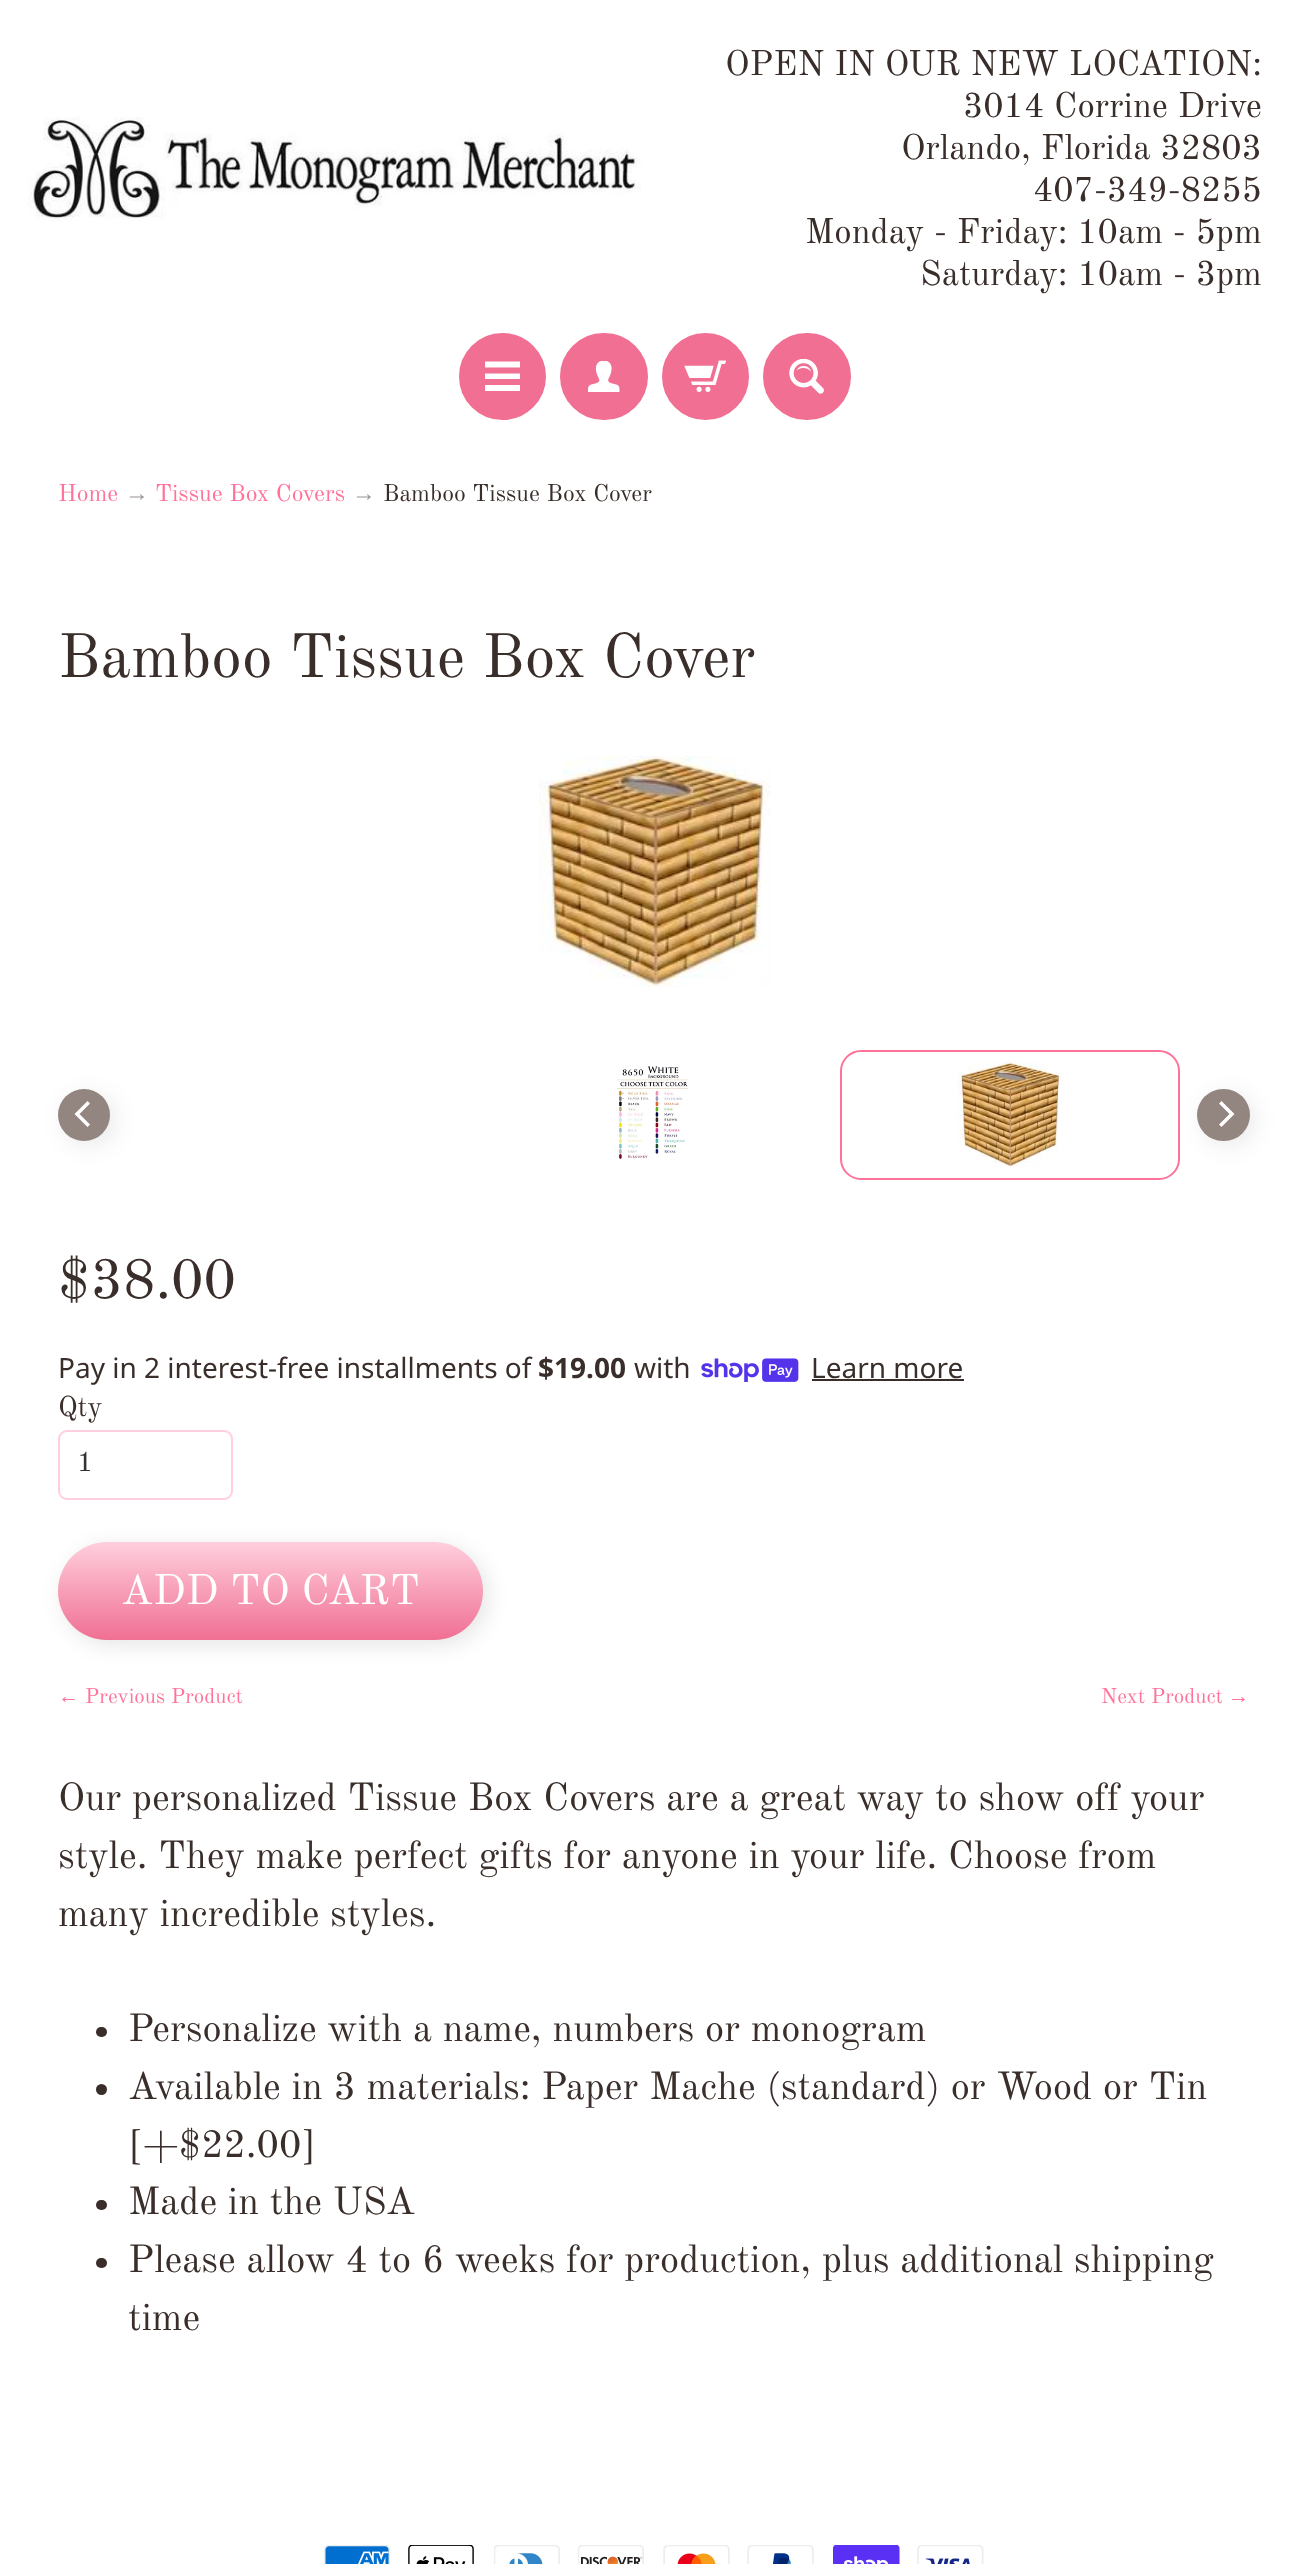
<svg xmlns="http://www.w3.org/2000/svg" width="1307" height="2564">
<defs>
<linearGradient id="g1" gradientUnits="userSpaceOnUse" x1="270" y1="1542" x2="270" y2="1640"><stop offset="0" stop-color="#ffcfdd"/><stop offset="1" stop-color="#f06f93"/></linearGradient>
</defs>
<rect width="100%" height="100%" fill="#fff"/>
<image x="28" y="117" width="613" height="104" href="media/1.png"/>
<text x="725" y="75" style="font-family:Old Standard TT;font-size:35px;fill:#392e2a">OPEN IN OUR NEW LOCATION:</text>
<text x="963" y="117" style="font-family:Old Standard TT;font-size:35px;fill:#392e2a">3014 Corrine Drive</text>
<text x="901" y="159" style="font-family:Old Standard TT;font-size:35px;fill:#392e2a">Orlando, Florida 32803</text>
<text x="1033" y="201" style="font-family:Old Standard TT;font-size:35px;fill:#392e2a">407-349-8255</text>
<text x="805" y="243" style="font-family:Old Standard TT;font-size:35px;fill:#392e2a">Monday - Friday: 10am - 5pm</text>
<text x="920" y="285" style="font-family:Old Standard TT;font-size:35px;fill:#392e2a">Saturday: 10am - 3pm</text>
<circle cx="502.5" cy="376.5" r="41" fill="#f06f93" stroke="#f06f93" stroke-width="5"/>
<path d="M520 367.5h-35v-6h35zm0 6h-35v5.5h35zm0 11.5h-35v6h35z" fill="#fff"/>
<rect x="562.5" y="335.5" width="83" height="82" rx="41" fill="#f06f93" stroke="#f06f93" stroke-width="5"/>
<image x="588" y="361" width="32" height="31" href="media/2.png"/>
<circle cx="705.5" cy="376.5" r="41" fill="#f06f93" stroke="#f06f93" stroke-width="5"/>
<image x="684" y="360" width="42" height="32" href="media/3.png"/>
<rect x="765.5" y="335.5" width="83" height="82" rx="41" fill="#f06f93" stroke="#f06f93" stroke-width="5"/>
<image x="789" y="359" width="35" height="35" href="media/4.png"/>
<text x="58" y="501" style="font-family:Old Standard TT;font-size:23.75px;fill:#ff739a">Home</text>
<text x="125" y="501" style="font-family:Liberation Serif;font-size:23.75px;fill:#9c9795">→</text>
<text x="155" y="501" style="font-family:Old Standard TT;font-size:23.75px;fill:#ff739a">Tissue Box Covers</text>
<text x="352" y="501" style="font-family:Liberation Serif;font-size:23.75px;fill:#9c9795">→</text>
<text x="383" y="501" style="font-family:Old Standard TT;font-size:23.75px;fill:#392e2a">Bamboo Tissue Box Cover</text>
<text x="58" y="677" style="font-family:Old Standard TT;font-size:61.6px;fill:#392e2a">Bamboo Tissue Box Cover</text>
<image x="539" y="756" width="231" height="231" href="media/5.png"/>
<rect x="63" y="1094" width="53" height="52" rx="26" fill="#3333331a" filter="blur(10.5px)"/>
<circle cx="84" cy="1115" r="26" fill="#938580"/>
<path d="M74.5 1114l13 13l2.5-2.5l-10.5-10.5l10.5-10.5l-2.5-2.5z" fill="#fff"/>
<image x="617" y="1066" width="72" height="94" href="media/6.png"/>
<rect x="841" y="1051" width="338" height="128" rx="20" fill="none" stroke="#ff739a" stroke-width="2"/>
<image x="957" y="1062" width="105" height="105" href="media/7.png"/>
<rect x="1202" y="1094" width="53" height="52" rx="26" fill="#3333331a" filter="blur(10.5px)"/>
<rect x="1197" y="1089" width="53" height="52" rx="26" fill="#938580"/>
<path d="M1234.5 1114l-13-13l-2.5 2.5l10.5 10.5l-10.5 10.5l2.5 2.5z" fill="#fff"/>
<text x="58" y="1298" style="font-family:Old Standard TT;font-size:56px;fill:#392e2a">$38.00</text>
<text x="58" y="1378" style="font-family:Noto Sans;font-size:28px;fill:#392e2a">Pay in 2 interest-free installments of</text>
<text x="538" y="1378" style="font-family:Noto Sans;font-size:28px;font-weight:bold;fill:#392e2a">$19.00</text>
<text x="634" y="1378" style="font-family:Noto Sans;font-size:28px;fill:#392e2a">with</text>
<image x="701" y="1358" width="98" height="24" href="media/8.png"/>
<text x="811" y="1378" style="font-family:Noto Sans;font-size:28px;fill:#392e2a">Learn more</text>
<rect x="812" y="1379" width="152" height="2" fill="#392e2a"/>
<text x="58" y="1416" style="font-family:Old Standard TT;font-size:28px;fill:#392e2a">Qty</text>
<rect x="59" y="1431" width="173" height="68" rx="8" fill="none" stroke="#ffcfdd" stroke-width="2"/>
<text x="77" y="1471" style="font-family:Old Standard TT;font-size:28px;fill:#333">1</text>
<rect x="63" y="1547" width="425" height="98" rx="49" fill="#0000001a" filter="blur(10.5px)"/>
<rect x="58" y="1542" width="425" height="98" rx="49" fill="url(#g1)"/>
<text x="121" y="1604" style="font-family:Old Standard TT;font-size:42px;fill:#fff">ADD TO CART</text>
<text x="58" y="1703" style="font-family:Liberation Serif;font-size:21px;fill:#ff739a">←</text>
<text x="85" y="1703" style="font-family:Old Standard TT;font-size:21px;fill:#ff739a">Previous Product</text>
<text x="1101" y="1703" style="font-family:Old Standard TT;font-size:21px;fill:#ff739a">Next Product</text>
<text x="1228" y="1703" style="font-family:Liberation Serif;font-size:21px;fill:#ff739a">→</text>
<text x="58" y="1810" style="font-family:Old Standard TT;font-size:38.5px;fill:#392e2a">Our personalized Tissue Box Covers are a great way to show off your</text>
<text x="58" y="1868" style="font-family:Old Standard TT;font-size:38.5px;fill:#392e2a">style. They make perfect gifts for anyone in your life. Choose from</text>
<text x="58" y="1926" style="font-family:Old Standard TT;font-size:38.5px;fill:#392e2a">many incredible styles.</text>
<rect x="96" y="2027" width="11" height="10" rx="5" fill="#392e2a"/>
<text x="128" y="2041" style="font-family:Old Standard TT;font-size:38.5px;fill:#392e2a">Personalize with a name, numbers or monogram</text>
<circle cx="101.5" cy="2089.5" r="5.5" fill="#392e2a"/>
<text x="128" y="2099" style="font-family:Old Standard TT;font-size:38.5px;fill:#392e2a">Available in 3 materials: Paper Mache (standard) or Wood or Tin</text>
<text x="128" y="2157" style="font-family:Old Standard TT;font-size:38.5px;fill:#392e2a">[+$22.00]</text>
<rect x="96" y="2200" width="11" height="10" rx="5" fill="#392e2a"/>
<text x="128" y="2214" style="font-family:Old Standard TT;font-size:38.5px;fill:#392e2a">Made in the USA</text>
<rect x="96" y="2258" width="11" height="10" rx="5" fill="#392e2a"/>
<text x="128" y="2272" style="font-family:Old Standard TT;font-size:38.5px;fill:#392e2a">Please allow 4 to 6 weeks for production, plus additional shipping</text>
<text x="128" y="2330" style="font-family:Old Standard TT;font-size:38.5px;fill:#392e2a">time</text>
<image x="324" y="2545" width="66" height="19" href="media/9.png"/>
<image x="408" y="2545" width="66" height="19" href="media/10.png"/>
<image x="494" y="2545" width="66" height="19" href="media/11.png"/>
<image x="578" y="2545" width="66" height="19" href="media/12.png"/>
<image x="663" y="2545" width="67" height="19" href="media/13.png"/>
<image x="747" y="2545" width="67" height="19" href="media/14.png"/>
<image x="833" y="2545" width="67" height="19" href="media/15.png"/>
<image x="917" y="2545" width="67" height="19" href="media/16.png"/>
</svg>
